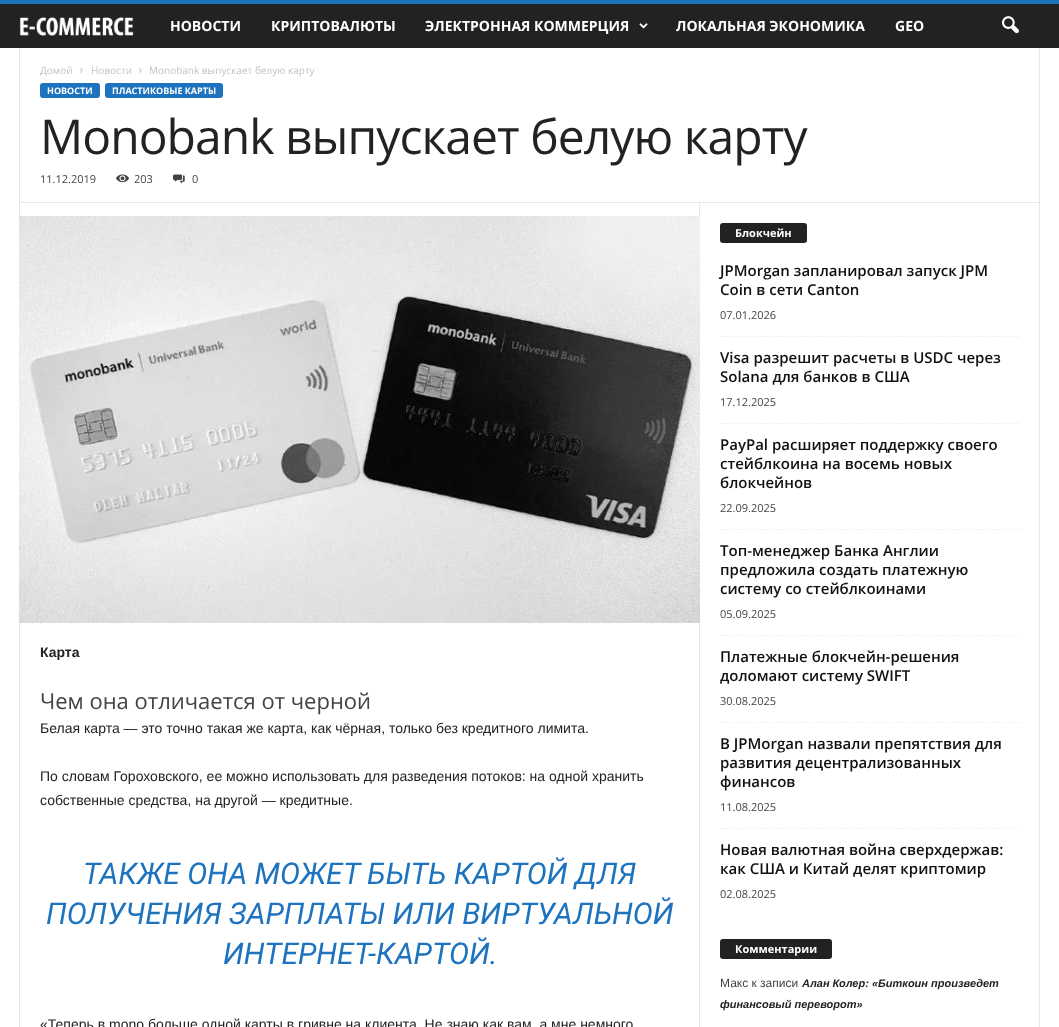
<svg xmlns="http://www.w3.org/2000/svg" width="1059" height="1027">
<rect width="100%" height="100%" fill="#fff"/>
<rect y="4" width="1059" height="44" fill="#222"/>
<rect width="1059" height="4" fill="#1e73be"/>
<image x="19" y="17" width="115" height="19" href="media/1.png"/>
<text x="170" y="31" style="font-family:Open Sans;font-size:14px;font-weight:bold;fill:#fff">НОВОСТИ</text>
<text x="271" y="31" style="font-family:Open Sans;font-size:14px;font-weight:bold;fill:#fff">КРИПТОВАЛЮТЫ</text>
<text x="425" y="31" style="font-family:Open Sans;font-size:14px;font-weight:bold;fill:#fff">ЭЛЕКТРОННАЯ КОММЕРЦИЯ</text>
<image x="639" y="23" width="9" height="6" href="media/2.png"/>
<text x="676" y="31" style="font-family:Open Sans;font-size:14px;font-weight:bold;fill:#fff">ЛОКАЛЬНАЯ ЭКОНОМИКА</text>
<text x="895" y="31" style="font-family:Open Sans;font-size:14px;font-weight:bold;fill:#fff">GEO</text>
<image x="1002" y="16" width="17" height="18" href="media/3.png"/>
<rect x="19" y="48" width="1" height="979" fill="#e6e6e6"/>
<text x="40" y="74" style="font-family:Open Sans;font-size:10px;fill:#c3c3c3">Домой</text>
<image x="80" y="68" width="3" height="5" href="media/4.png"/>
<text x="91" y="74" style="font-family:Open Sans;font-size:10px;fill:#c3c3c3">Новости</text>
<image x="139" y="68" width="3" height="5" href="media/4.png"/>
<text x="149" y="74" style="font-family:Open Sans;font-size:10px;fill:#c3c3c3">Monobank выпускает белую карту</text>
<rect x="40" y="83" width="60" height="15" rx="3" fill="#1e73be"/>
<text x="47" y="94" style="font-family:Open Sans;font-size:9px;font-weight:bold;fill:#fff">НОВОСТИ</text>
<rect x="105" y="83" width="118" height="15" rx="3" fill="#1e73be"/>
<text x="112" y="94" style="font-family:Open Sans;font-size:9px;font-weight:bold;fill:#fff">ПЛАСТИКОВЫЕ КАРТЫ</text>
<text x="40" y="154" style="font-family:Open Sans;font-size:48px;letter-spacing:-0.95px;fill:#222">Monobank выпускает белую карту</text>
<text x="40" y="183" style="font-family:Open Sans;font-size:11px;fill:#444">11.12.2019</text>
<image x="116" y="174" width="13" height="9" href="media/5.png"/>
<text x="134" y="183" style="font-family:Open Sans;font-size:11px;fill:#444">203</text>
<image x="173" y="174" width="12" height="10" href="media/6.png"/>
<text x="192" y="183" style="font-family:Open Sans;font-size:11px;fill:#444">0</text>
<rect x="699" y="202" width="1" height="825" fill="#e6e6e6"/>
<rect x="20" y="202" width="1019" height="1" fill="#e6e6e6"/>
<image x="19" y="216" width="681" height="407" href="media/7.png"/>
<text x="40" y="657" style="font-family:Liberation Sans;font-size:14px;font-weight:bold;fill:#222">Карта</text>
<text x="40" y="709" style="font-family:Open Sans;font-size:22px;fill:#444">Чем она отличается от черной</text>
<text x="40" y="733" style="font-family:Liberation Sans;font-size:14px;fill:#222">Белая карта — это точно такая же карта, как чёрная, только без кредитного лимита.</text>
<text x="40" y="781" style="font-family:Liberation Sans;font-size:14px;fill:#222">По словам Гороховского, ее можно использовать для разведения потоков: на одной хранить</text>
<text x="40" y="805" style="font-family:Liberation Sans;font-size:14px;fill:#222">собственные средства, на другой — кредитные.</text>
<text x="83" y="884" style="font-family:Roboto;font-size:30px;font-style:italic;fill:#1e73be">ТАКЖЕ ОНА МОЖЕТ БЫТЬ КАРТОЙ ДЛЯ</text>
<text x="46" y="924" style="font-family:Roboto;font-size:30px;font-style:italic;fill:#1e73be">ПОЛУЧЕНИЯ ЗАРПЛАТЫ ИЛИ ВИРТУАЛЬНОЙ</text>
<text x="223" y="964" style="font-family:Roboto;font-size:30px;font-style:italic;fill:#1e73be">ИНТЕРНЕТ-КАРТОЙ.</text>
<text x="40" y="1029" style="font-family:Liberation Sans;font-size:14px;fill:#222">«Теперь в mono больше одной карты в гривне на клиента. Не знаю как вам, а мне немного</text>
<rect x="720" y="223" width="87" height="20" rx="3" fill="#222"/>
<text x="735" y="237" style="font-family:Open Sans;font-size:11px;font-weight:bold;fill:#fff">Блокчейн</text>
<path d="M720 336.5h300" fill="none" stroke="#f1f1f1" stroke-dasharray="3 2.03"/>
<text x="720" y="276" style="font-family:Open Sans;font-size:15px;font-weight:600;fill:#111">JPMorgan запланировал запуск JPM</text>
<text x="720" y="295" style="font-family:Open Sans;font-size:15px;font-weight:600;fill:#111">Coin в сети Canton</text>
<text x="720" y="319" style="font-family:Open Sans;font-size:11px;fill:#444">07.01.2026</text>
<path d="M720 423.5h300" fill="none" stroke="#f1f1f1" stroke-dasharray="3 2.03"/>
<text x="720" y="363" style="font-family:Open Sans;font-size:15px;font-weight:600;fill:#111">Visa разрешит расчеты в USDC через</text>
<text x="720" y="382" style="font-family:Open Sans;font-size:15px;font-weight:600;fill:#111">Solana для банков в США</text>
<text x="720" y="406" style="font-family:Open Sans;font-size:11px;fill:#444">17.12.2025</text>
<path d="M720 529.5h300" fill="none" stroke="#f1f1f1" stroke-dasharray="3 2.03"/>
<text x="720" y="450" style="font-family:Open Sans;font-size:15px;font-weight:600;fill:#111">PayPal расширяет поддержку своего</text>
<text x="720" y="469" style="font-family:Open Sans;font-size:15px;font-weight:600;fill:#111">стейблкоина на восемь новых</text>
<text x="720" y="488" style="font-family:Open Sans;font-size:15px;font-weight:600;fill:#111">блокчейнов</text>
<text x="720" y="512" style="font-family:Open Sans;font-size:11px;fill:#444">22.09.2025</text>
<path d="M720 635.5h300" fill="none" stroke="#f1f1f1" stroke-dasharray="3 2.03"/>
<text x="720" y="556" style="font-family:Open Sans;font-size:15px;font-weight:600;fill:#111">Топ-менеджер Банка Англии</text>
<text x="720" y="575" style="font-family:Open Sans;font-size:15px;font-weight:600;fill:#111">предложила создать платежную</text>
<text x="720" y="594" style="font-family:Open Sans;font-size:15px;font-weight:600;fill:#111">систему со стейблкоинами</text>
<text x="720" y="618" style="font-family:Open Sans;font-size:11px;fill:#444">05.09.2025</text>
<path d="M720 722.5h300" fill="none" stroke="#f1f1f1" stroke-dasharray="3 2.03"/>
<text x="720" y="662" style="font-family:Open Sans;font-size:15px;font-weight:600;fill:#111">Платежные блокчейн-решения</text>
<text x="720" y="681" style="font-family:Open Sans;font-size:15px;font-weight:600;fill:#111">доломают систему SWIFT</text>
<text x="720" y="705" style="font-family:Open Sans;font-size:11px;fill:#444">30.08.2025</text>
<path d="M720 828.5h300" fill="none" stroke="#f1f1f1" stroke-dasharray="3 2.03"/>
<text x="720" y="749" style="font-family:Open Sans;font-size:15px;font-weight:600;fill:#111">В JPMorgan назвали препятствия для</text>
<text x="720" y="768" style="font-family:Open Sans;font-size:15px;font-weight:600;fill:#111">развития децентрализованных</text>
<text x="720" y="787" style="font-family:Open Sans;font-size:15px;font-weight:600;fill:#111">финансов</text>
<text x="720" y="811" style="font-family:Open Sans;font-size:11px;fill:#444">11.08.2025</text>
<text x="720" y="855" style="font-family:Open Sans;font-size:15px;font-weight:600;fill:#111">Новая валютная война сверхдержав:</text>
<text x="720" y="874" style="font-family:Open Sans;font-size:15px;font-weight:600;fill:#111">как США и Китай делят криптомир</text>
<text x="720" y="898" style="font-family:Open Sans;font-size:11px;fill:#444">02.08.2025</text>
<rect x="720" y="939" width="112" height="20" rx="3" fill="#222"/>
<text x="735" y="953" style="font-family:Open Sans;font-size:11px;font-weight:bold;fill:#fff">Комментарии</text>
<text x="720" y="987" style="font-family:Liberation Sans;font-size:12px;fill:#444">Макс к записи</text>
<text x="802" y="987" style="font-family:Liberation Sans;font-size:11px;font-weight:bold;font-style:italic;fill:#222">Алан Колер: «Биткоин произведет</text>
<text x="720" y="1008" style="font-family:Liberation Sans;font-size:11px;font-weight:bold;font-style:italic;fill:#222">финансовый переворот»</text>
<rect x="1039" y="48" width="1" height="979" fill="#e6e6e6"/>
</svg>
